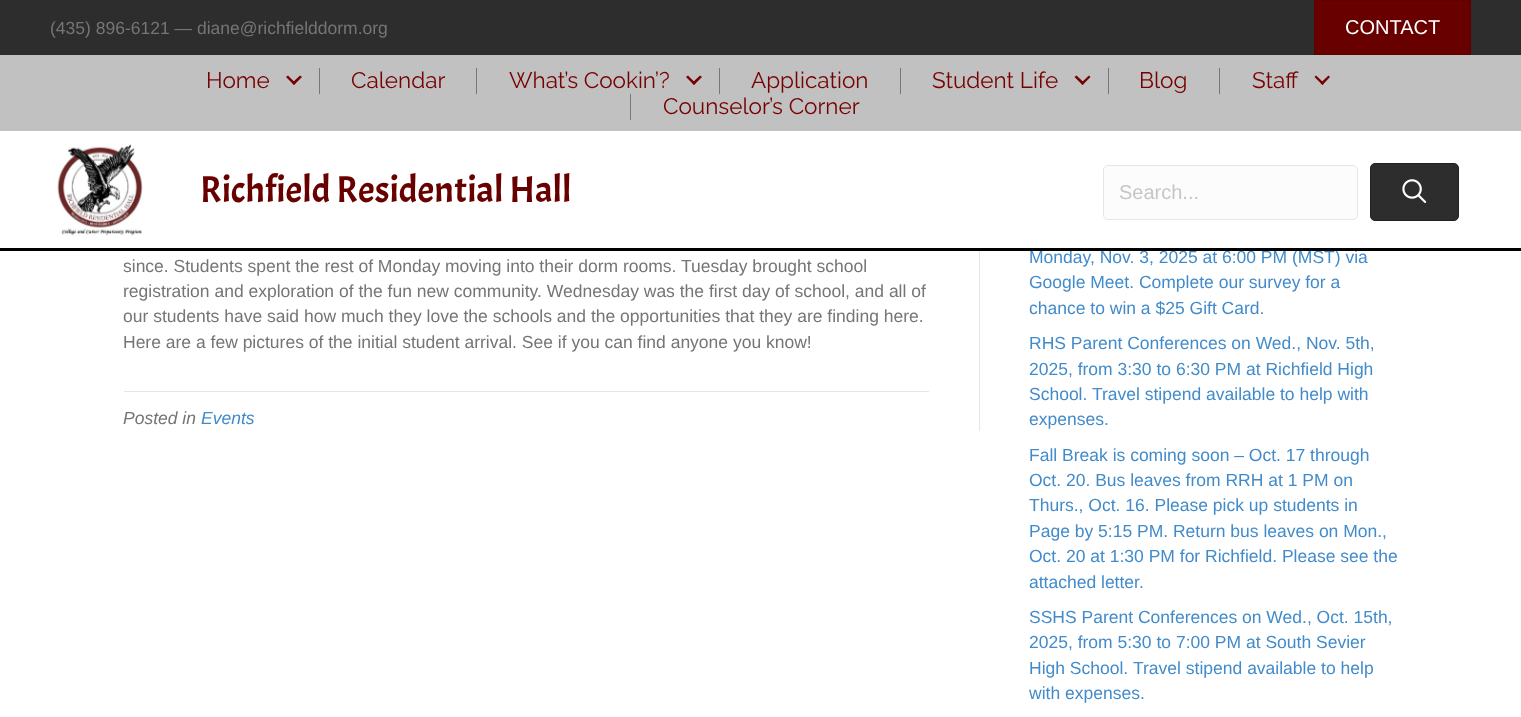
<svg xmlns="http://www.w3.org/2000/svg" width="1521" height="717">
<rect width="100%" height="100%" fill="#fff"/>
<rect width="1521" height="55" fill="#2d2d2d"/>
<text x="50" y="34" style="font-family:Liberation Sans;font-size:17.5px;fill:#757575">(435) 896-6121 — diane@richfielddorm.org</text>
<rect x="1314.5" y="0.5" width="156" height="54" fill="#680000" stroke="#5c0000"/>
<text x="1345" y="34" style="font-family:Liberation Sans;font-size:20px;fill:#fff">CONTACT</text>
<rect y="55" width="1521" height="76" fill="#c1c1c1"/>
<text x="206" y="88" style="font-family:Raleway;font-size:22.5px;font-weight:100;fill:#700">Home</text>
<path d="M300 75.5l2 1.5l-8 8l-2-2z" fill="#700"/>
<path d="M288 75.5l7.5 7.5l-1.5 2l-8-8z" fill="#700"/>
<rect x="319" y="68" width="1" height="26" fill="#777"/>
<text x="351" y="88" style="font-family:Raleway;font-size:22.5px;font-weight:100;fill:#700">Calendar</text>
<rect x="476" y="68" width="1" height="26" fill="#777"/>
<text x="509" y="88" style="font-family:Raleway;font-size:22.5px;font-weight:100;fill:#700">What’s Cookin’?</text>
<path d="M700 75.5l2 1.5l-8 8l-2-2z" fill="#700"/>
<path d="M688 75.5l7.5 7.5l-1.5 2l-8-8z" fill="#700"/>
<rect x="719" y="68" width="1" height="26" fill="#777"/>
<text x="751" y="88" style="font-family:Raleway;font-size:22.5px;font-weight:100;fill:#700">Application</text>
<rect x="900" y="68" width="1" height="26" fill="#777"/>
<text x="932" y="88" style="font-family:Raleway;font-size:22.5px;font-weight:100;fill:#700">Student Life</text>
<path d="M1089 75.5l1.5 1.5l-8 8l-1.5-2z" fill="#700"/>
<path d="M1076.5 75.5l8 7.5l-2 2l-8-8z" fill="#700"/>
<rect x="1108" y="68" width="1" height="26" fill="#777"/>
<text x="1139" y="88" style="font-family:Raleway;font-size:22.5px;font-weight:100;fill:#700">Blog</text>
<rect x="1219" y="68" width="1" height="26" fill="#777"/>
<text x="1252" y="88" style="font-family:Raleway;font-size:22.5px;font-weight:100;fill:#700">Staff</text>
<path d="M1328.5 75.5l1.5 1.5l-7.5 8l-2-2z" fill="#700"/>
<path d="M1316 75.5l8 7.5l-1.5 2l-8-8z" fill="#700"/>
<rect x="630" y="94" width="1" height="26" fill="#777"/>
<text x="663" y="114" style="font-family:Raleway;font-size:22.5px;font-weight:100;fill:#700">Counselor’s Corner</text>
<text x="1029" y="263" style="font-family:Liberation Sans;font-size:17.5px;fill:#428bca">Monday, Nov. 3, 2025 at 6:00 PM (MST) via</text>
<rect y="248" width="1521" height="3" fill="#000"/>
<image x="57" y="144" width="86" height="92" href="media/1.png"/>
<text x="200" y="202" style="font-family:Acme;font-size:37.5px;fill:#680000">Richfield Residential Hall</text>
<rect x="1103.5" y="165.5" width="254" height="54" rx="4.5" fill="#fcfcfc" stroke="#e6e6e6"/>
<text x="1119" y="199" style="font-family:Liberation Sans;font-size:20px;fill:#c6c6c6">Search...</text>
<rect x="1370.5" y="163.5" width="88" height="57" rx="4.5" fill="#2d2d2d" stroke="#212121"/>
<image x="1402" y="179" width="25" height="24" href="media/2.png"/>
<rect x="979" y="251" width="1" height="180" fill="#e6e6e6"/>
<text x="123" y="272" style="font-family:Liberation Sans;font-size:17.5px;fill:#757575">since. Students spent the rest of Monday moving into their dorm rooms. Tuesday brought school</text>
<text x="123" y="297" style="font-family:Liberation Sans;font-size:17.5px;fill:#757575">registration and exploration of the fun new community. Wednesday was the first day of school, and all of</text>
<text x="123" y="322" style="font-family:Liberation Sans;font-size:17.5px;fill:#757575">our students have said how much they love the schools and the opportunities that they are finding here.</text>
<text x="123" y="348" style="font-family:Liberation Sans;font-size:17.5px;fill:#757575">Here are a few pictures of the initial student arrival. See if you can find anyone you know!</text>
<rect x="124" y="391" width="805" height="1" fill="#e6e6e6"/>
<text x="123" y="424" style="font-family:Liberation Sans;font-size:17.5px;font-style:italic;fill:#757575">Posted in</text>
<text x="201" y="424" style="font-family:Liberation Sans;font-size:17.5px;font-style:italic;fill:#428bca">Events</text>
<text x="1029" y="288" style="font-family:Liberation Sans;font-size:17.5px;fill:#428bca">Google Meet. Complete our survey for a</text>
<text x="1029" y="314" style="font-family:Liberation Sans;font-size:17.5px;fill:#428bca">chance to win a $25 Gift Card.</text>
<text x="1029" y="349" style="font-family:Liberation Sans;font-size:17.5px;fill:#428bca">RHS Parent Conferences on Wed., Nov. 5th,</text>
<text x="1029" y="375" style="font-family:Liberation Sans;font-size:17.5px;fill:#428bca">2025, from 3:30 to 6:30 PM at Richfield High</text>
<text x="1029" y="400" style="font-family:Liberation Sans;font-size:17.5px;fill:#428bca">School. Travel stipend available to help with</text>
<text x="1029" y="425" style="font-family:Liberation Sans;font-size:17.5px;fill:#428bca">expenses.</text>
<text x="1029" y="461" style="font-family:Liberation Sans;font-size:17.5px;fill:#428bca">Fall Break is coming soon – Oct. 17 through</text>
<text x="1029" y="486" style="font-family:Liberation Sans;font-size:17.5px;fill:#428bca">Oct. 20. Bus leaves from RRH at 1 PM on</text>
<text x="1029" y="511" style="font-family:Liberation Sans;font-size:17.5px;fill:#428bca">Thurs., Oct. 16. Please pick up students in</text>
<text x="1029" y="537" style="font-family:Liberation Sans;font-size:17.5px;fill:#428bca">Page by 5:15 PM. Return bus leaves on Mon.,</text>
<text x="1029" y="562" style="font-family:Liberation Sans;font-size:17.5px;fill:#428bca">Oct. 20 at 1:30 PM for Richfield. Please see the</text>
<text x="1029" y="588" style="font-family:Liberation Sans;font-size:17.5px;fill:#428bca">attached letter.</text>
<text x="1029" y="623" style="font-family:Liberation Sans;font-size:17.5px;fill:#428bca">SSHS Parent Conferences on Wed., Oct. 15th,</text>
<text x="1029" y="648" style="font-family:Liberation Sans;font-size:17.5px;fill:#428bca">2025, from 5:30 to 7:00 PM at South Sevier</text>
<text x="1029" y="674" style="font-family:Liberation Sans;font-size:17.5px;fill:#428bca">High School.</text>
<text x="1133" y="674" style="font-family:Liberation Sans;font-size:17.5px;fill:#428bca">Travel stipend available to help</text>
<text x="1029" y="699" style="font-family:Liberation Sans;font-size:17.5px;fill:#428bca">with expenses.</text>
</svg>
